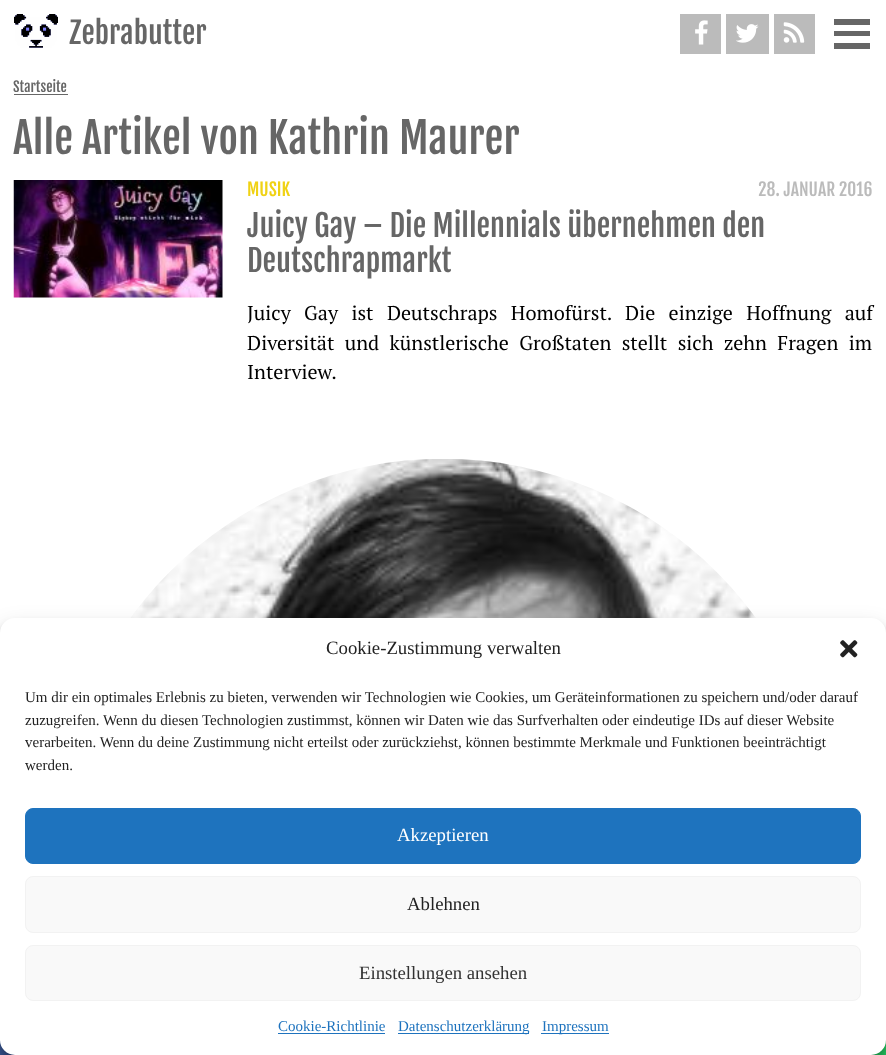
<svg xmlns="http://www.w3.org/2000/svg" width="886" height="1055">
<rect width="100%" height="100%" fill="#fff"/>
<image x="14" y="14" width="44" height="34" href="media/1.png"/>
<text x="69" y="44" style="font-family:Fjalla One;font-size:29.5px;fill:#666">Zebrabutter</text>
<rect x="680" y="14" width="41" height="40" fill="#bbb"/>
<image x="695" y="20" width="13" height="25" href="media/2.png"/>
<rect x="726" y="14" width="43" height="40" fill="#bbb"/>
<image x="736" y="24" width="23" height="19" href="media/3.png"/>
<rect x="774" y="14" width="41" height="40" fill="#bbb"/>
<image x="783" y="22" width="22" height="21" href="media/4.png"/>
<rect x="834" y="19" width="36" height="6" fill="#666"/>
<rect x="834" y="31" width="36" height="5" fill="#666"/>
<rect x="834" y="43" width="36" height="6" fill="#666"/>
<text x="13" y="92" style="font-family:Fjalla One;font-size:14px;fill:#666">Startseite</text>
<rect x="14" y="94" width="54" height="1" fill="#666"/>
<text x="13" y="154" style="font-family:Fjalla One;font-size:42px;fill:#666">Alle Artikel von Kathrin Maurer</text>
<image x="13" y="180" width="210" height="118" href="media/5.png"/>
<text x="247" y="196" style="font-family:Fjalla One;font-size:17.5px;fill:#f0d214">MUSIK</text>
<text x="758" y="196" style="font-family:Fjalla One;font-size:17.5px;fill:#bbb">28. JANUAR 2016</text>
<text x="247" y="237" style="font-family:Fjalla One;font-size:30px;fill:#666">Juicy Gay – Die Millennials übernehmen den</text>
<text x="247" y="272" style="font-family:Fjalla One;font-size:30px;fill:#666">Deutschrapmarkt</text>
<text x="247" y="320" word-spacing="8.5" style="font-family:PT Serif;font-size:20px;fill:#000">Juicy Gay ist Deutschraps Homofürst. Die einzige Hoffnung auf</text>
<text x="247" y="350" word-spacing="5.5" style="font-family:PT Serif;font-size:20px;fill:#000">Diversität und künstlerische Großtaten stellt sich zehn Fragen im</text>
<text x="247" y="379" style="font-family:PT Serif;font-size:20px;fill:#000">Interview.</text>
<image x="130" y="459" width="626" height="159" href="media/6.png"/>
<rect y="1040" width="15" height="15" fill="#3b5998"/>
<rect x="871" y="1040" width="15" height="15" fill="#25d366"/>
<rect y="625" width="886" height="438" rx="15" fill="#0000003b" filter="blur(4px)"/>
<rect y="630" width="886" height="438" rx="15" fill="#00000030" filter="blur(12.5px)"/>
<rect y="618" width="886" height="437" rx="15" fill="#fff"/>
<text x="326" y="654" style="font-family:Liberation Serif;font-size:18.75px;fill:#222">Cookie-Zustimmung verwalten</text>
<image x="840" y="640" width="18" height="18" href="media/7.png"/>
<text x="25" y="702" style="font-family:Liberation Serif;font-size:15px;fill:#222">Um dir ein optimales Erlebnis zu bieten, verwenden wir Technologien wie Cookies, um Geräteinformationen zu speichern und/oder darauf</text>
<text x="25" y="725" style="font-family:Liberation Serif;font-size:15px;fill:#222">zuzugreifen. Wenn du diesen Technologien zustimmst, können wir Daten wie das Surfverhalten oder eindeutige IDs auf dieser Website</text>
<text x="25" y="747" style="font-family:Liberation Serif;font-size:15px;fill:#222">verarbeiten. Wenn du deine Zustimmung nicht erteilst oder zurückziehst, können bestimmte Merkmale und Funktionen beeinträchtigt</text>
<text x="25" y="770" style="font-family:Liberation Serif;font-size:15px;fill:#222">werden.</text>
<rect x="25.5" y="808.5" width="835" height="55" rx="7.5" fill="#1e73be" stroke="#1e73be"/>
<text x="397" y="841" style="font-family:Liberation Serif;font-size:18.75px;fill:#fff">Akzeptieren</text>
<rect x="25.5" y="876.5" width="835" height="56" rx="7.5" fill="#f9f9f9" stroke="#f2f2f2"/>
<text x="407" y="910" style="font-family:Liberation Serif;font-size:18.75px;fill:#222">Ablehnen</text>
<rect x="25.5" y="945.5" width="835" height="55" rx="7.5" fill="#f9f9f9" stroke="#f2f2f2"/>
<text x="359" y="979" style="font-family:Liberation Serif;font-size:18.75px;fill:#333">Einstellungen ansehen</text>
<text x="278" y="1031" style="font-family:Liberation Serif;font-size:15px;fill:#1e73be">Cookie-Richtlinie</text>
<rect x="278" y="1033" width="107" height="1" fill="#1e73be"/>
<rect x="398" y="1033" width="131" height="1" fill="#1e73be"/>
<text x="398" y="1031" style="font-family:Liberation Serif;font-size:15px;fill:#1e73be">Datenschutzerklärung</text>
<rect x="541" y="1033" width="68" height="1" fill="#1e73be"/>
<text x="542" y="1031" style="font-family:Liberation Serif;font-size:15px;fill:#1e73be">Impressum</text>
</svg>
